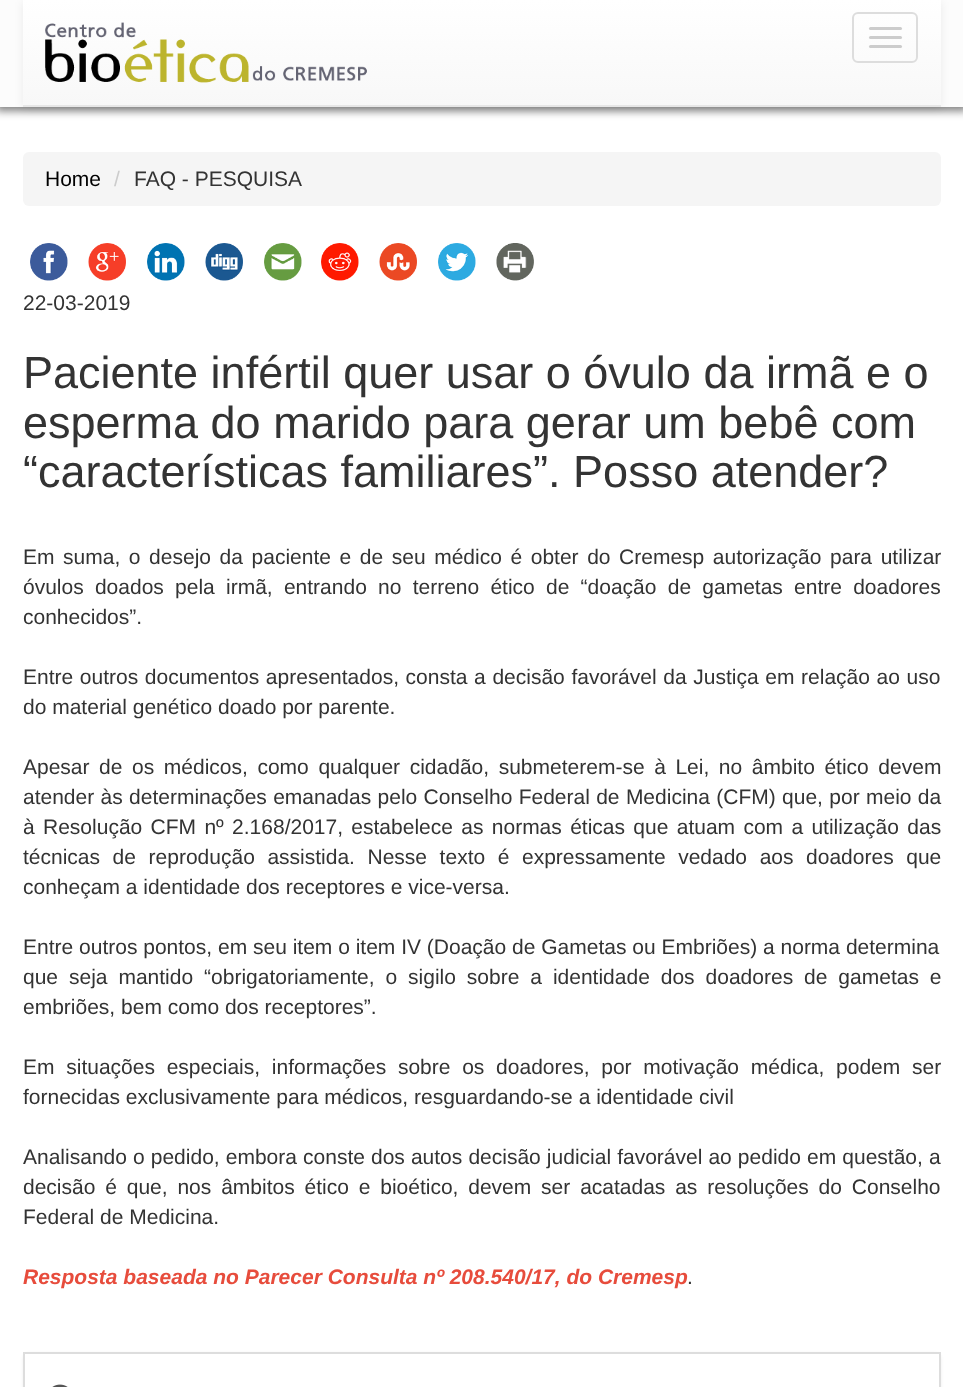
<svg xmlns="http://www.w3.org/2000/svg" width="963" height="1387">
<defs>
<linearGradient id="g1" gradientUnits="userSpaceOnUse" x1="482" y1="0" x2="482" y2="105"><stop offset="0" stop-color="#fff"/><stop offset="1" stop-color="#f8f8f8"/></linearGradient>
</defs>
<rect width="100%" height="100%" fill="#fff"/>
<rect x="-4" y="-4" width="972" height="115" fill="#00000080" filter="blur(4px)"/>
<rect width="963" height="107" fill="#fcfcfc"/>
<rect x="23" y="2" width="918" height="106" fill="#00000012" filter="blur(4px)"/>
<rect x="23" width="918" height="105" fill="url(#g1)"/>
<rect x="23" y="105" width="918" height="2" fill="#e7e7e7"/>
<image x="45" y="22" width="322" height="61" href="media/1.png"/>
<rect x="853" y="13" width="64" height="49" rx="5" fill="none" stroke="#ddd" stroke-width="2"/>
<rect x="869" y="27" width="33" height="3" rx="1.5" fill="#ccc"/>
<rect x="869" y="36" width="33" height="3" rx="1.5" fill="#ccc"/>
<rect x="869" y="45" width="33" height="3" rx="1.5" fill="#ccc"/>
<rect x="23" y="152" width="918" height="54" rx="6" fill="#f5f5f5"/>
<text x="45" y="186" style="font-family:Liberation Sans;font-size:21px;fill:#000">Home</text>
<text x="114" y="186" style="font-family:Liberation Sans;font-size:21px;fill:#ccc">/</text>
<text x="134" y="186" style="font-family:Liberation Sans;font-size:21px;fill:#333">FAQ - PESQUISA</text>
<image x="30" y="243" width="38" height="38" href="media/2.png"/>
<image x="88" y="243" width="38" height="38" href="media/3.png"/>
<image x="147" y="243" width="38" height="38" href="media/4.png"/>
<image x="205" y="243" width="38" height="38" href="media/5.png"/>
<image x="264" y="243" width="38" height="38" href="media/6.png"/>
<image x="321" y="243" width="38" height="38" href="media/7.png"/>
<image x="379" y="243" width="38" height="38" href="media/8.png"/>
<image x="438" y="243" width="38" height="38" href="media/9.png"/>
<image x="496" y="243" width="38" height="38" href="media/10.png"/>
<text x="23" y="310" style="font-family:Liberation Sans;font-size:21px;fill:#333">22-03-2019</text>
<text x="23" y="388" style="font-family:Liberation Sans;font-size:45px;fill:#333">Paciente infértil quer usar o óvulo da irmã e o</text>
<text x="23" y="438" style="font-family:Liberation Sans;font-size:45px;fill:#333">esperma do marido para gerar um bebê com</text>
<text x="23" y="487" style="font-family:Liberation Sans;font-size:45px;fill:#333">“características familiares”. Posso atender?</text>
<text x="23" y="564" word-spacing="2.75" style="font-family:Liberation Sans;font-size:21px;fill:#333">Em suma, o desejo da paciente e de seu médico é obter do Cremesp autorização para utilizar</text>
<text x="23" y="594" word-spacing="5.4" style="font-family:Liberation Sans;font-size:21px;fill:#333">óvulos doados pela irmã, entrando no terreno ético de “doação de gametas entre doadores</text>
<text x="23" y="624" style="font-family:Liberation Sans;font-size:21px;fill:#333">conhecidos”.</text>
<text x="23" y="684" word-spacing="0.8" style="font-family:Liberation Sans;font-size:21px;fill:#333">Entre outros documentos apresentados, consta a decisão favorável da Justiça em relação ao uso</text>
<text x="23" y="714" style="font-family:Liberation Sans;font-size:21px;fill:#333">do material genético doado por parente.</text>
<text x="23" y="774" word-spacing="3.75" style="font-family:Liberation Sans;font-size:21px;fill:#333">Apesar de os médicos, como qualquer cidadão, submeterem-se à Lei, no âmbito ético devem</text>
<text x="23" y="804" word-spacing="0.5" style="font-family:Liberation Sans;font-size:21px;fill:#333">atender às determinações emanadas pelo Conselho Federal de Medicina (CFM) que, por meio da</text>
<text x="23" y="834" word-spacing="2.5" style="font-family:Liberation Sans;font-size:21px;fill:#333">à Resolução CFM nº 2.168/2017, estabelece as normas éticas que atuam com a utilização das</text>
<text x="23" y="864" word-spacing="6.75" style="font-family:Liberation Sans;font-size:21px;fill:#333">técnicas de reprodução assistida. Nesse texto é expressamente vedado aos doadores que</text>
<text x="23" y="894" style="font-family:Liberation Sans;font-size:21px;fill:#333">conheçam a identidade dos receptores e vice-versa.</text>
<text x="23" y="954" style="font-family:Liberation Sans;font-size:21px;fill:#333">Entre outros pontos, em seu item o item IV (Doação de Gametas ou Embriões) a norma determina</text>
<text x="23" y="984" word-spacing="5.1" style="font-family:Liberation Sans;font-size:21px;fill:#333">que seja mantido “obrigatoriamente, o sigilo sobre a identidade dos doadores de gametas e</text>
<text x="23" y="1014" style="font-family:Liberation Sans;font-size:21px;fill:#333">embriões, bem como dos receptores”.</text>
<text x="23" y="1074" word-spacing="5.9" style="font-family:Liberation Sans;font-size:21px;fill:#333">Em situações especiais, informações sobre os doadores, por motivação médica, podem ser</text>
<text x="23" y="1104" style="font-family:Liberation Sans;font-size:21px;fill:#333">fornecidas exclusivamente para médicos, resguardando-se a identidade civil</text>
<text x="23" y="1164" word-spacing="0.25" style="font-family:Liberation Sans;font-size:21px;fill:#333">Analisando o pedido, embora conste dos autos decisão judicial favorável ao pedido em questão, a</text>
<text x="23" y="1194" word-spacing="4" style="font-family:Liberation Sans;font-size:21px;fill:#333">decisão é que, nos âmbitos ético e bioético, devem ser acatadas as resoluções do Conselho</text>
<text x="23" y="1224" style="font-family:Liberation Sans;font-size:21px;fill:#333">Federal de Medicina.</text>
<text x="23" y="1284" style="font-family:Liberation Sans;font-size:21px;font-weight:bold;font-style:italic;fill:#e74c3c">Resposta baseada no Parecer Consulta nº 208.540/17, do Cremesp</text>
<text x="687" y="1284" style="font-family:Liberation Sans;font-size:21px;fill:#333">.</text>
<rect x="23" y="1353" width="918" height="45" rx="6" fill="#00000012" filter="blur(1.5px)"/>
<rect x="24" y="1353" width="916" height="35" fill="#fff" stroke="#ddd" stroke-width="2"/>
<image x="52" y="1384" width="16" height="3" href="media/11.png"/>
</svg>
